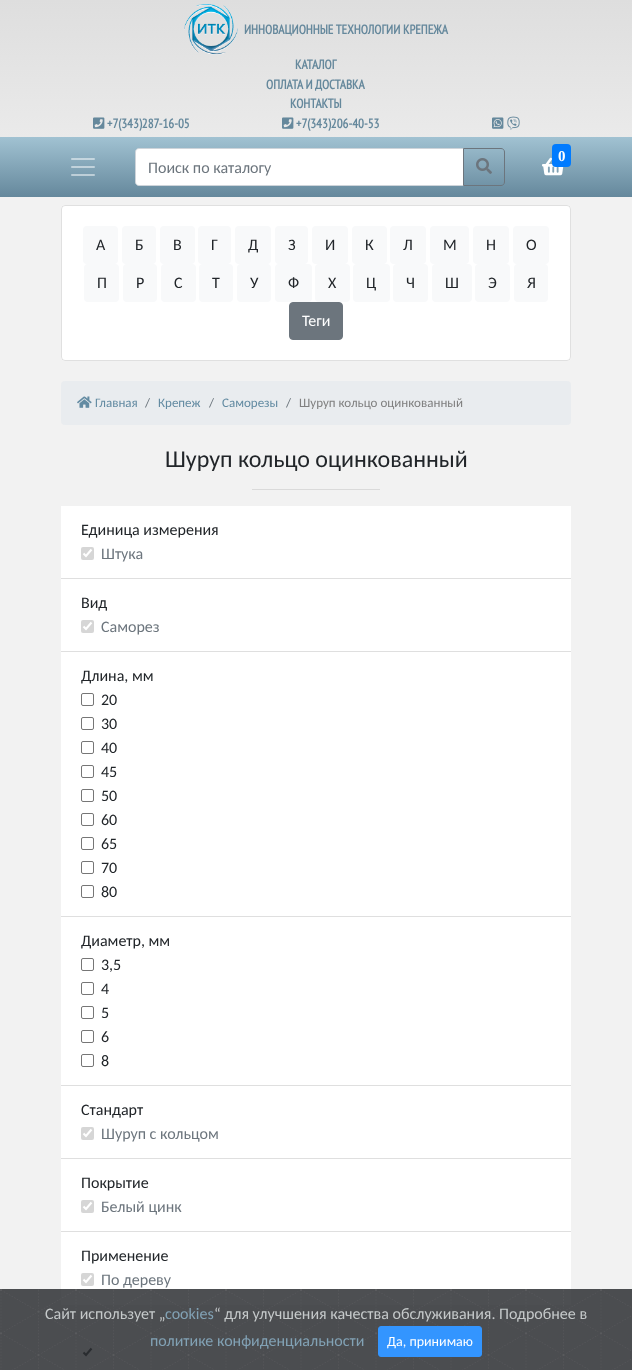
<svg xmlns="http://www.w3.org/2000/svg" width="632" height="1370">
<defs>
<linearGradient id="g1" gradientUnits="userSpaceOnUse" x1="316" y1="0" x2="316" y2="137"><stop offset="0" stop-color="#dedede"/><stop offset="1" stop-color="#eaeaea"/></linearGradient>
<linearGradient id="g2" gradientUnits="userSpaceOnUse" x1="316" y1="137" x2="316" y2="197"><stop offset="0" stop-color="#a1c2d2"/><stop offset="1" stop-color="#65889c"/></linearGradient>
</defs>
<rect width="100%" height="100%" fill="#f2f2f2"/>
<rect width="632" height="137" fill="url(#g1)"/>
<image x="184" y="4" width="54" height="51" href="media/1.png"/>
<text x="244" y="34" style="font-family:PT Sans Narrow;font-size:13px;font-weight:bold;fill:#65889c">ИННОВАЦИОННЫЕ ТЕХНОЛОГИИ КРЕПЕЖА</text>
<text x="295" y="69" style="font-family:PT Sans Narrow;font-size:13px;font-weight:bold;fill:#65889c">КАТАЛОГ</text>
<text x="266" y="89" style="font-family:PT Sans Narrow;font-size:13px;font-weight:bold;fill:#65889c">ОПЛАТА И ДОСТАВКА</text>
<text x="290" y="108" style="font-family:PT Sans Narrow;font-size:13px;font-weight:bold;fill:#65889c">КОНТАКТЫ</text>
<image x="93" y="117" width="12" height="12" href="media/2.png"/>
<text x="107" y="128" style="font-family:PT Sans Narrow;font-size:13px;font-weight:bold;fill:#65889c">+7(343)287-16-05</text>
<image x="282" y="117" width="12" height="12" href="media/2.png"/>
<text x="296" y="128" style="font-family:PT Sans Narrow;font-size:13px;font-weight:bold;fill:#65889c">+7(343)206-40-53</text>
<image x="492" y="117" width="12" height="12" href="media/3.png"/>
<image x="507" y="116" width="13" height="14" href="media/4.png"/>
<rect y="137" width="632" height="60" fill="url(#g2)"/>
<image x="542" y="157" width="22" height="19" href="media/5.png"/>
<rect x="552" y="144" width="19" height="23" rx="4" fill="#007bff"/>
<text x="558" y="161" style="font-family:Liberation Serif;font-size:15px;font-weight:bold;fill:#fff">0</text>
<image x="71" y="158" width="24" height="18" href="media/6.png"/>
<path d="M139 148.5h324.5v37h-324.5c-2 0-3.5-1.5-3.5-3.5v-30c0-2 1.5-3.5 3.5-3.5z" fill="#fff" stroke="#ced4da"/>
<text x="148" y="173" style="font-family:Carlito;font-size:16px;fill:#6c757d">Поиск по каталогу</text>
<path d="M463.5 148.5h37.5c2 0 3.5 1.5 3.5 3.5v30c0 2-1.5 3.5-3.5 3.5h-37.5z" fill="none" stroke="#6c757d"/>
<image x="476" y="158" width="16" height="16" href="media/7.png"/>
<rect x="61" y="205" width="510" height="156" rx="4" fill="#fff"/>
<rect x="61.5" y="205.5" width="509" height="155" rx="3.5" fill="none" stroke="#0000001f"/>
<rect x="83" y="226" width="35" height="38" rx="4" fill="#f8f9fa"/>
<text x="96" y="250" style="font-family:Carlito;font-size:16px;fill:#212529">А</text>
<rect x="122" y="226" width="34" height="38" rx="4" fill="#f8f9fa"/>
<text x="135" y="250" style="font-family:Carlito;font-size:16px;fill:#212529">Б</text>
<rect x="160" y="226" width="35" height="38" rx="4" fill="#f8f9fa"/>
<text x="173" y="250" style="font-family:Carlito;font-size:16px;fill:#212529">В</text>
<rect x="198" y="226" width="33" height="38" rx="4" fill="#f8f9fa"/>
<text x="211" y="250" style="font-family:Carlito;font-size:16px;fill:#212529">Г</text>
<rect x="235" y="226" width="36" height="38" rx="4" fill="#f8f9fa"/>
<text x="248" y="250" style="font-family:Carlito;font-size:16px;fill:#212529">Д</text>
<rect x="275" y="226" width="33" height="38" rx="4" fill="#f8f9fa"/>
<text x="288" y="250" style="font-family:Carlito;font-size:16px;fill:#212529">З</text>
<rect x="312" y="226" width="36" height="38" rx="4" fill="#f8f9fa"/>
<text x="325" y="250" style="font-family:Carlito;font-size:16px;fill:#212529">И</text>
<rect x="352" y="226" width="35" height="38" rx="4" fill="#f8f9fa"/>
<text x="365" y="250" style="font-family:Carlito;font-size:16px;fill:#212529">К</text>
<rect x="390" y="226" width="36" height="38" rx="4" fill="#f8f9fa"/>
<text x="403" y="250" style="font-family:Carlito;font-size:16px;fill:#212529">Л</text>
<rect x="430" y="226" width="39" height="38" rx="4" fill="#f8f9fa"/>
<text x="443" y="250" style="font-family:Carlito;font-size:16px;fill:#212529">М</text>
<rect x="473" y="226" width="36" height="38" rx="4" fill="#f8f9fa"/>
<text x="486" y="250" style="font-family:Carlito;font-size:16px;fill:#212529">Н</text>
<rect x="513" y="226" width="36" height="38" rx="4" fill="#f8f9fa"/>
<text x="526" y="250" style="font-family:Carlito;font-size:16px;fill:#212529">О</text>
<rect x="84" y="264" width="35" height="38" rx="4" fill="#f8f9fa"/>
<text x="97" y="288" style="font-family:Carlito;font-size:16px;fill:#212529">П</text>
<rect x="123" y="264" width="34" height="38" rx="4" fill="#f8f9fa"/>
<text x="136" y="288" style="font-family:Carlito;font-size:16px;fill:#212529">Р</text>
<rect x="161" y="264" width="35" height="38" rx="4" fill="#f8f9fa"/>
<text x="174" y="288" style="font-family:Carlito;font-size:16px;fill:#212529">С</text>
<rect x="199" y="264" width="34" height="38" rx="4" fill="#f8f9fa"/>
<text x="212" y="288" style="font-family:Carlito;font-size:16px;fill:#212529">Т</text>
<rect x="237" y="264" width="34" height="38" rx="4" fill="#f8f9fa"/>
<text x="250" y="288" style="font-family:Carlito;font-size:16px;fill:#212529">У</text>
<rect x="275" y="264" width="37" height="38" rx="4" fill="#f8f9fa"/>
<text x="288" y="288" style="font-family:Carlito;font-size:16px;fill:#212529">Ф</text>
<rect x="315" y="264" width="35" height="38" rx="4" fill="#f8f9fa"/>
<text x="328" y="288" style="font-family:Carlito;font-size:16px;fill:#212529">Х</text>
<rect x="353" y="264" width="37" height="38" rx="4" fill="#f8f9fa"/>
<text x="366" y="288" style="font-family:Carlito;font-size:16px;fill:#212529">Ц</text>
<rect x="393" y="264" width="35" height="38" rx="4" fill="#f8f9fa"/>
<text x="406" y="288" style="font-family:Carlito;font-size:16px;fill:#212529">Ч</text>
<rect x="432" y="264" width="40" height="38" rx="4" fill="#f8f9fa"/>
<text x="445" y="288" style="font-family:Carlito;font-size:16px;fill:#212529">Ш</text>
<rect x="475" y="264" width="35" height="38" rx="4" fill="#f8f9fa"/>
<text x="488" y="288" style="font-family:Carlito;font-size:16px;fill:#212529">Э</text>
<rect x="514" y="264" width="34" height="38" rx="4" fill="#f8f9fa"/>
<text x="527" y="288" style="font-family:Carlito;font-size:16px;fill:#212529">Я</text>
<rect x="289.5" y="302.5" width="53" height="37" rx="3.5" fill="#6c757d" stroke="#6c757d"/>
<text x="302" y="326" style="font-family:Carlito;font-size:16px;fill:#fff">Теги</text>
<rect x="61" y="381" width="510" height="44" rx="4" fill="#e9ecef"/>
<image x="77" y="396" width="15" height="12" href="media/8.png"/>
<text x="95" y="407" style="font-family:Carlito;font-size:13px;fill:#638ba2">Главная</text>
<text x="145" y="407" style="font-family:Carlito;font-size:13px;fill:#6c757d">/</text>
<text x="158" y="407" style="font-family:Carlito;font-size:13px;fill:#638ba2">Крепеж</text>
<text x="209" y="407" style="font-family:Carlito;font-size:13px;fill:#6c757d">/</text>
<text x="222" y="407" style="font-family:Carlito;font-size:13px;fill:#638ba2">Саморезы</text>
<text x="286" y="407" style="font-family:Carlito;font-size:13px;fill:#6c757d">/</text>
<text x="299" y="407" style="font-family:Carlito;font-size:13px;fill:#808080">Шуруп кольцо оцинкованный</text>
<text x="165" y="467" style="font-family:Carlito;font-size:24px;fill:#212529">Шуруп кольцо оцинкованный</text>
<rect x="252" y="489" width="128" height="1" fill="#dadada"/>
<rect x="61" y="506" width="510" height="72" fill="#fff"/>
<rect x="61" y="578" width="510" height="1" fill="#dfdfdf"/>
<text x="81" y="535" style="font-family:Carlito;font-size:16px;fill:#212529">Единица измерения</text>
<rect x="81" y="547" width="13" height="13" rx="2" fill="#d6d6d6"/>
<path d="M83.5 553.5l2.5 2.5l5.5-6.5" fill="none" stroke="#fff" stroke-width="2.1"/>
<text x="101" y="559" style="font-family:Carlito;font-size:16px;fill:#6c757d">Штука</text>
<rect x="61" y="579" width="510" height="72" fill="#fff"/>
<rect x="61" y="651" width="510" height="1" fill="#dfdfdf"/>
<text x="81" y="608" style="font-family:Carlito;font-size:16px;fill:#212529">Вид</text>
<rect x="81" y="620" width="13" height="13" rx="2" fill="#d6d6d6"/>
<path d="M83.5 626.5l2.5 2.5l5.5-6.5" fill="none" stroke="#fff" stroke-width="2.1"/>
<text x="101" y="632" style="font-family:Carlito;font-size:16px;fill:#6c757d">Саморез</text>
<rect x="61" y="652" width="510" height="264" fill="#fff"/>
<rect x="61" y="916" width="510" height="1" fill="#dfdfdf"/>
<text x="81" y="681" style="font-family:Carlito;font-size:16px;fill:#212529">Длина, мм</text>
<rect x="81.5" y="693.5" width="12" height="12" rx="1.5" fill="none" stroke="#767676"/>
<text x="101" y="705" style="font-family:Carlito;font-size:16px;fill:#212529">20</text>
<rect x="81.5" y="717.5" width="12" height="12" rx="1.5" fill="none" stroke="#767676"/>
<text x="101" y="729" style="font-family:Carlito;font-size:16px;fill:#212529">30</text>
<rect x="81.5" y="741.5" width="12" height="12" rx="1.5" fill="none" stroke="#767676"/>
<text x="101" y="753" style="font-family:Carlito;font-size:16px;fill:#212529">40</text>
<rect x="81.5" y="765.5" width="12" height="12" rx="1.5" fill="none" stroke="#767676"/>
<text x="101" y="777" style="font-family:Carlito;font-size:16px;fill:#212529">45</text>
<rect x="81.5" y="789.5" width="12" height="12" rx="1.5" fill="none" stroke="#767676"/>
<text x="101" y="801" style="font-family:Carlito;font-size:16px;fill:#212529">50</text>
<rect x="81.5" y="813.5" width="12" height="12" rx="1.5" fill="none" stroke="#767676"/>
<text x="101" y="825" style="font-family:Carlito;font-size:16px;fill:#212529">60</text>
<rect x="81.5" y="837.5" width="12" height="12" rx="1.5" fill="none" stroke="#767676"/>
<text x="101" y="849" style="font-family:Carlito;font-size:16px;fill:#212529">65</text>
<rect x="81.5" y="861.5" width="12" height="12" rx="1.5" fill="none" stroke="#767676"/>
<text x="101" y="873" style="font-family:Carlito;font-size:16px;fill:#212529">70</text>
<rect x="81.5" y="885.5" width="12" height="12" rx="1.5" fill="none" stroke="#767676"/>
<text x="101" y="897" style="font-family:Carlito;font-size:16px;fill:#212529">80</text>
<rect x="61" y="917" width="510" height="168" fill="#fff"/>
<rect x="61" y="1085" width="510" height="1" fill="#dfdfdf"/>
<text x="81" y="946" style="font-family:Carlito;font-size:16px;fill:#212529">Диаметр, мм</text>
<rect x="81.5" y="958.5" width="12" height="12" rx="1.5" fill="none" stroke="#767676"/>
<text x="101" y="970" style="font-family:Carlito;font-size:16px;fill:#212529">3,5</text>
<rect x="81.5" y="982.5" width="12" height="12" rx="1.5" fill="none" stroke="#767676"/>
<text x="101" y="994" style="font-family:Carlito;font-size:16px;fill:#212529">4</text>
<rect x="81.5" y="1006.5" width="12" height="12" rx="1.5" fill="none" stroke="#767676"/>
<text x="101" y="1018" style="font-family:Carlito;font-size:16px;fill:#212529">5</text>
<rect x="81.5" y="1030.5" width="12" height="12" rx="1.5" fill="none" stroke="#767676"/>
<text x="101" y="1042" style="font-family:Carlito;font-size:16px;fill:#212529">6</text>
<rect x="81.5" y="1054.5" width="12" height="12" rx="1.5" fill="none" stroke="#767676"/>
<text x="101" y="1066" style="font-family:Carlito;font-size:16px;fill:#212529">8</text>
<rect x="61" y="1086" width="510" height="72" fill="#fff"/>
<rect x="61" y="1158" width="510" height="1" fill="#dfdfdf"/>
<text x="81" y="1115" style="font-family:Carlito;font-size:16px;fill:#212529">Стандарт</text>
<rect x="81" y="1127" width="13" height="13" rx="2" fill="#d6d6d6"/>
<path d="M83.5 1133.5l2.5 2.5l5.5-6.5" fill="none" stroke="#fff" stroke-width="2.1"/>
<text x="101" y="1139" style="font-family:Carlito;font-size:16px;fill:#6c757d">Шуруп с кольцом</text>
<rect x="61" y="1159" width="510" height="72" fill="#fff"/>
<rect x="61" y="1231" width="510" height="1" fill="#dfdfdf"/>
<text x="81" y="1188" style="font-family:Carlito;font-size:16px;fill:#212529">Покрытие</text>
<rect x="81" y="1200" width="13" height="13" rx="2" fill="#d6d6d6"/>
<path d="M83.5 1206.5l2.5 2.5l5.5-6.5" fill="none" stroke="#fff" stroke-width="2.1"/>
<text x="101" y="1212" style="font-family:Carlito;font-size:16px;fill:#6c757d">Белый цинк</text>
<rect x="61" y="1232" width="510" height="73" fill="#fff"/>
<text x="81" y="1261" style="font-family:Carlito;font-size:16px;fill:#212529">Применение</text>
<rect x="81" y="1273" width="13" height="13" rx="2" fill="#d6d6d6"/>
<path d="M83.5 1279.5l2.5 2.5l5.5-6.5" fill="none" stroke="#fff" stroke-width="2.1"/>
<text x="101" y="1285" style="font-family:Carlito;font-size:16px;fill:#6c757d">По дереву</text>
<path d="M83.5 1352.5l2.5 2.5l5.5-6.5" fill="none" stroke="#4d4f52" stroke-width="2.1"/>
<image x="0" y="1289" width="632" height="81" href="media/9.png"/>
<text x="45" y="1319" style="font-family:Carlito;font-size:16px;fill:#c5c9ca">Сайт использует „</text>
<text x="165" y="1319" style="font-family:Carlito;font-size:16px;fill:#82a2b5">cookies</text>
<text x="214" y="1319" style="font-family:Carlito;font-size:16px;fill:#c5c9ca">“ для улучшения качества обслуживания. Подробнее в</text>
<text x="150" y="1346" style="font-family:Carlito;font-size:16px;fill:#82a2b5">политике конфиденциальности</text>
<rect x="378.5" y="1326.5" width="103" height="30" rx="2.5" fill="#3395ff" stroke="#3395ff"/>
<text x="387" y="1346" style="font-family:Carlito;font-size:14px;fill:#fff">Да, принимаю</text>
</svg>
